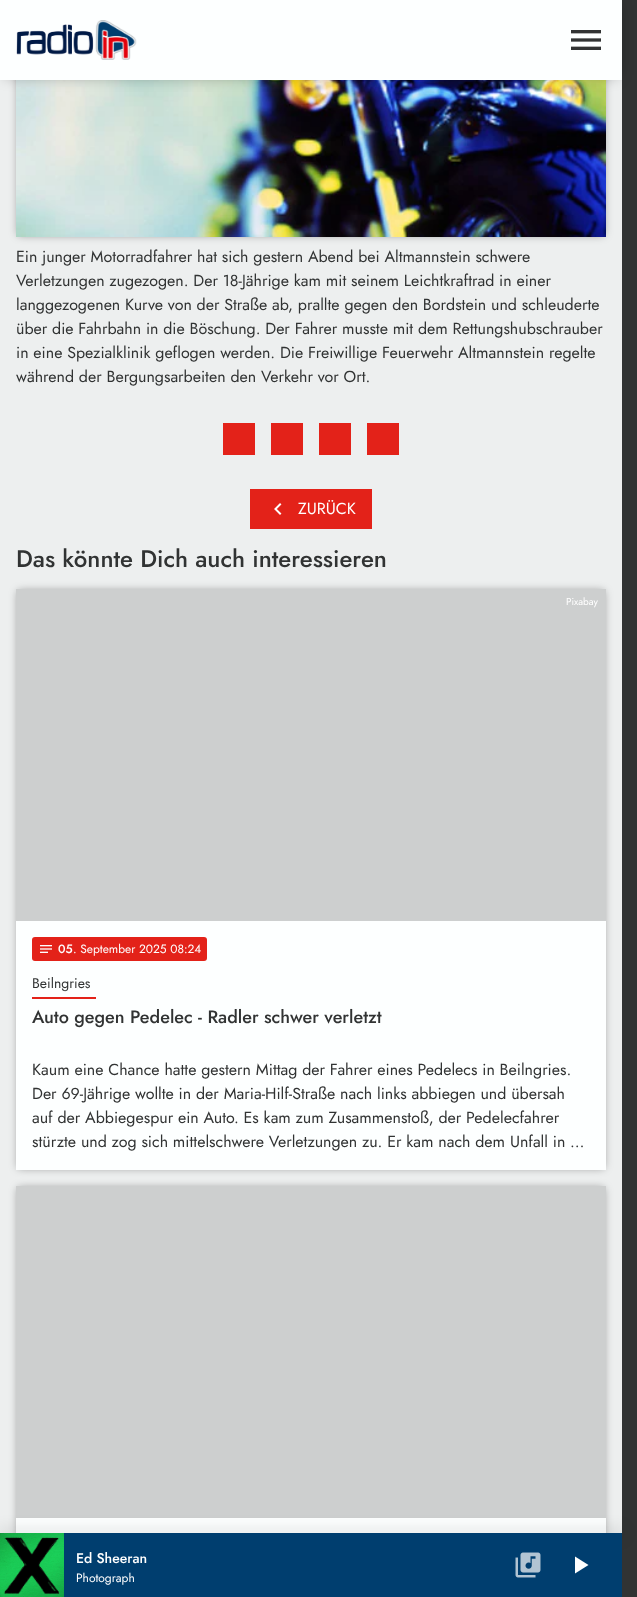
<svg xmlns="http://www.w3.org/2000/svg" width="637" height="1597">
<rect width="100%" height="100%" fill="#313333"/>
<rect y="80" width="622" height="1453" fill="#edefef"/>
<rect x="18" y="-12" width="586" height="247" fill="#00000066" filter="blur(4px)"/>
<image x="16" y="80" width="590" height="157" href="media/3.png"/>
<rect x="5" y="5" width="612" height="70" fill="#00000066" filter="blur(7.5px)"/>
<rect width="622" height="80" fill="#fdffff"/>
<image x="16" y="20" width="121" height="40" href="media/1.png"/>
<image x="571" y="30" width="30" height="20" href="media/2.png"/>
<text x="16" y="262" style="font-family:Jost;font-size:16px;fill:#313333">Ein junger Motorradfahrer hat sich gestern Abend bei Altmannstein schwere</text>
<text x="16" y="286" style="font-family:Jost;font-size:16px;fill:#313333">Verletzungen zugezogen. Der 18-Jährige kam mit seinem Leichtkraftrad in einer</text>
<text x="16" y="310" style="font-family:Jost;font-size:16px;fill:#313333">langgezogenen Kurve von der Straße ab, prallte gegen den Bordstein und schleuderte</text>
<text x="16" y="334" style="font-family:Jost;font-size:16px;fill:#313333">über die Fahrbahn in die Böschung. Der Fahrer musste mit dem Rettungshubschrauber</text>
<text x="16" y="358" style="font-family:Jost;font-size:16px;fill:#313333">in eine Spezialklinik geflogen werden. Die Freiwillige Feuerwehr Altmannstein regelte</text>
<text x="16" y="382" style="font-family:Jost;font-size:16px;fill:#313333">während der Bergungsarbeiten den Verkehr vor Ort.</text>
<rect x="223" y="423" width="32" height="32" fill="#e32219"/>
<rect x="271" y="423" width="32" height="32" fill="#e32219"/>
<rect x="319" y="423" width="32" height="32" fill="#e32219"/>
<rect x="367" y="423" width="32" height="32" fill="#e32219"/>
<rect x="250" y="489" width="122" height="40" fill="#e32219"/>
<image x="274" y="503" width="8" height="12" href="media/4.png"/>
<text x="298" y="514" style="font-family:Jost;font-size:16px;fill:#fff">ZURÜCK</text>
<text x="16" y="567" style="font-family:Jost;font-size:24px;font-weight:500;fill:#313333">Das könnte Dich auch interessieren</text>
<rect x="18" y="591" width="586" height="577" fill="#00000066" filter="blur(4px)"/>
<rect x="16" y="921" width="590" height="249" fill="#fdffff"/>
<rect x="16" y="589" width="590" height="332" fill="#cdcfcf"/>
<text x="566" y="605" style="font-family:Jost;font-size:10px;fill:#fff">Pixabay</text>
<rect x="32" y="937" width="175" height="24" rx="3" fill="#e32219"/>
<image x="40" y="945" width="12" height="8" href="media/5.png"/>
<text x="58" y="953" style="font-family:Jost;font-size:12px;font-weight:500;fill:#fff">05</text>
<text x="73" y="953" style="font-family:Jost;font-size:12px;fill:#fff">. September 2025 08:24</text>
<text x="32" y="988" style="font-family:Jost;font-size:14px;fill:#313333">Beilngries</text>
<rect x="32" y="997" width="64" height="2" fill="#e32219"/>
<text x="32" y="1023" style="font-family:Jost;font-size:18px;font-weight:500;fill:#313333">Auto gegen Pedelec - Radler schwer verletzt</text>
<text x="32" y="1075" style="font-family:Jost;font-size:16px;fill:#313333">Kaum eine Chance hatte gestern Mittag der Fahrer eines Pedelecs in Beilngries.</text>
<text x="32" y="1099" style="font-family:Jost;font-size:16px;fill:#313333">Der 69-Jährige wollte in der Maria-Hilf-Straße nach links abbiegen und übersah</text>
<text x="32" y="1123" style="font-family:Jost;font-size:16px;fill:#313333">auf der Abbiegespur ein Auto. Es kam zum Zusammenstoß, der Pedelecfahrer</text>
<text x="32" y="1147" style="font-family:Jost;font-size:16px;fill:#313333">stürzte und zog sich mittelschwere Verletzungen zu. Er kam nach dem Unfall in …</text>
<rect x="18" y="1188" width="586" height="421" fill="#00000066" filter="blur(4px)"/>
<rect x="16" y="1518" width="590" height="15" fill="#fdffff"/>
<rect x="16" y="1186" width="590" height="332" fill="#cdcfcf"/>
<rect x="-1" y="1532" width="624" height="2" fill="#00000080" filter="blur(7.5px)"/>
<rect x="64" y="1533" width="558" height="64" fill="#003e6f"/>
<image x="0" y="1533" width="64" height="64" href="media/6.png"/>
<text x="76" y="1563" style="font-family:Jost;font-size:14px;font-weight:500;fill:#fff">Ed Sheeran</text>
<text x="76" y="1582" style="font-family:Jost;font-size:12px;fill:#fff">Photograph</text>
<image x="515" y="1552" width="26" height="26" href="media/7.png"/>
<path d="M575 1556.5l13.5 8.5l-13.5 8.5z" fill="#fff"/>
</svg>
